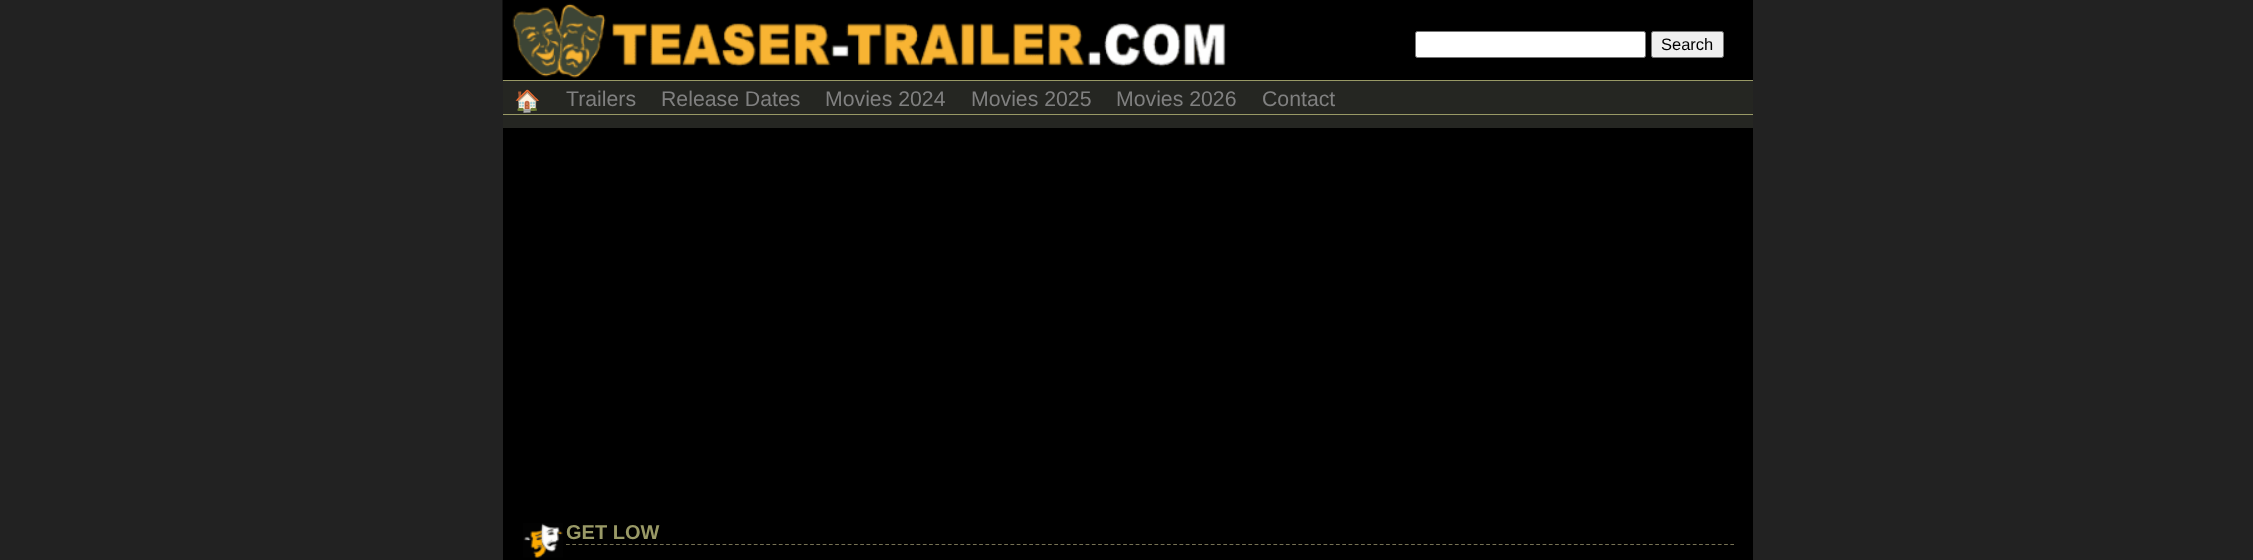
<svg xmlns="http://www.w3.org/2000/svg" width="2253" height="560">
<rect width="100%" height="100%" fill="#222"/>
<rect x="503" y="81" width="1250" height="47" fill="#252622"/>
<rect x="1226" width="527" height="80" fill="#000"/>
<image x="502" y="0" width="724" height="80" href="media/1.png"/>
<rect x="1415.5" y="31.5" width="230" height="26" rx="2" fill="#fff" stroke="#767676"/>
<rect x="1651.5" y="31.5" width="72" height="26" rx="2" fill="#efefef" stroke="#767676"/>
<text x="1661" y="50" style="font-family:Liberation Sans;font-size:16.5px;fill:#000">Search</text>
<rect x="503" y="80" width="1250" height="1" fill="#996"/>
<rect x="503" y="114" width="1250" height="1" fill="#996"/>
<text x="514" y="108" style="font-family:Noto Color Emoji;font-size:21.25px;fill:#808080">🏠</text>
<text x="566" y="106" style="font-family:Liberation Sans;font-size:21.25px;fill:#808080">Trailers</text>
<text x="661" y="106" style="font-family:Liberation Sans;font-size:21.25px;fill:#808080">Release Dates</text>
<text x="825" y="106" style="font-family:Liberation Sans;font-size:21.25px;fill:#808080">Movies 2024</text>
<text x="971" y="106" style="font-family:Liberation Sans;font-size:21.25px;fill:#808080">Movies 2025</text>
<text x="1116" y="106" style="font-family:Liberation Sans;font-size:21.25px;fill:#808080">Movies 2026</text>
<text x="1262" y="106" style="font-family:Liberation Sans;font-size:21.25px;fill:#808080">Contact</text>
<rect x="503" y="128" width="1250" height="432" fill="#000"/>
<image x="523" y="523" width="40" height="35" href="media/2.png"/>
<path d="M566 544.5h1168" fill="none" stroke="#767154" stroke-width="1.2" stroke-dasharray="3.75 2.51"/>
<text x="566" y="539" style="font-family:Liberation Sans;font-size:20px;font-weight:bold;fill:#996">GET LOW</text>
</svg>
